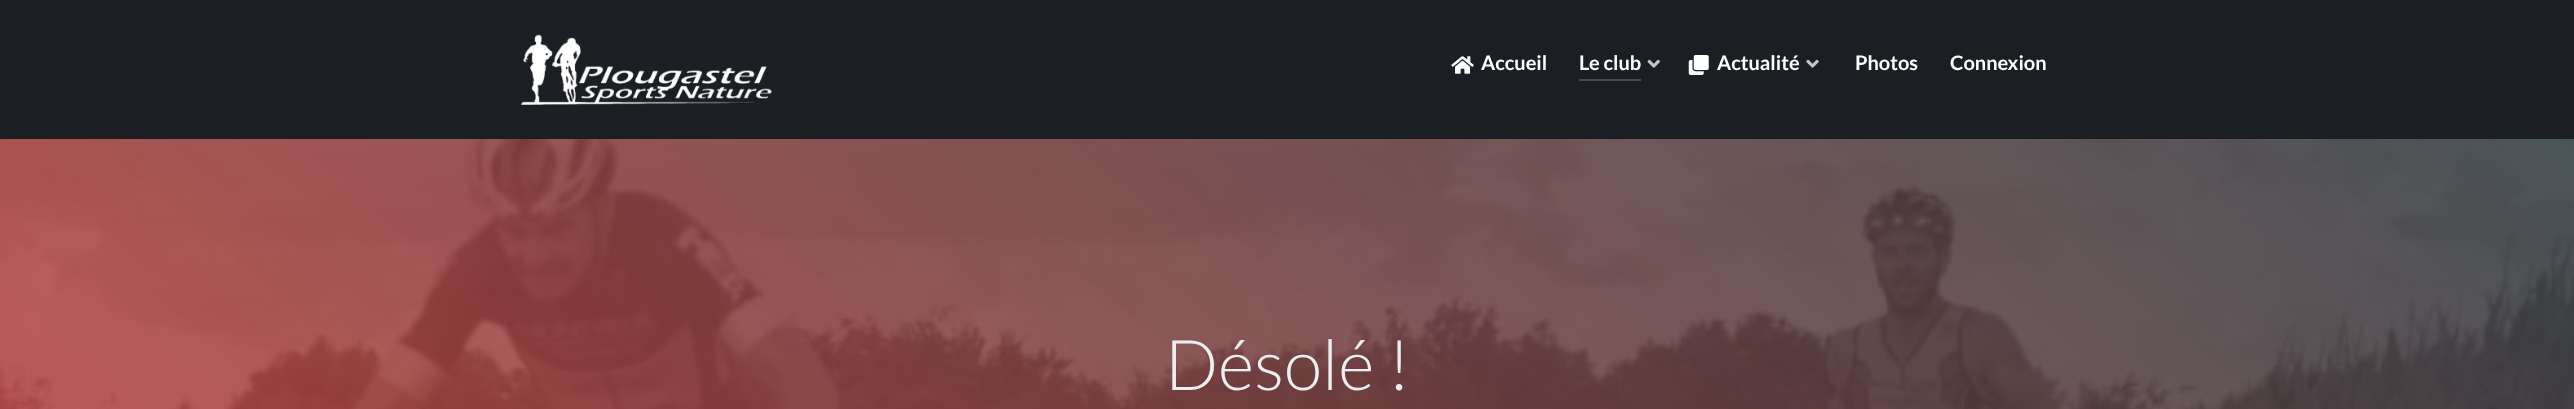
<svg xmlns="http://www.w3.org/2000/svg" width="2574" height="409">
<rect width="100%" height="100%" fill="#fff"/>
<rect width="2574" height="139" fill="#1b1f24"/>
<image x="520" y="34" width="252" height="71" href="media/1.png"/>
<image x="1451" y="56" width="23" height="18" href="media/2.png"/>
<text x="1481" y="70" style="font-family:Lato;font-size:20px;font-weight:bold;fill:#fff">Accueil</text>
<rect x="1579" y="79" width="62" height="2" fill="#494c50"/>
<text x="1579" y="70" style="font-family:Lato;font-size:20px;font-weight:bold;fill:#fff">Le club</text>
<image x="1647" y="59" width="13" height="9" href="media/3.png"/>
<image x="1688" y="55" width="21" height="20" href="media/4.png"/>
<text x="1717" y="70" style="font-family:Lato;font-size:20px;font-weight:bold;fill:#fff">Actualité</text>
<image x="1806" y="59" width="13" height="9" href="media/5.png"/>
<text x="1855" y="70" style="font-family:Lato;font-size:20px;font-weight:bold;fill:#fff">Photos</text>
<text x="1950" y="70" style="font-family:Lato;font-size:20px;font-weight:bold;fill:#fff">Connexion</text>
<image x="0" y="139" width="2574" height="270" href="media/6.png"/>
<text x="1165" y="390" style="font-family:Lato;font-size:70px;font-weight:300;fill:#eceeef">Désolé !</text>
</svg>
